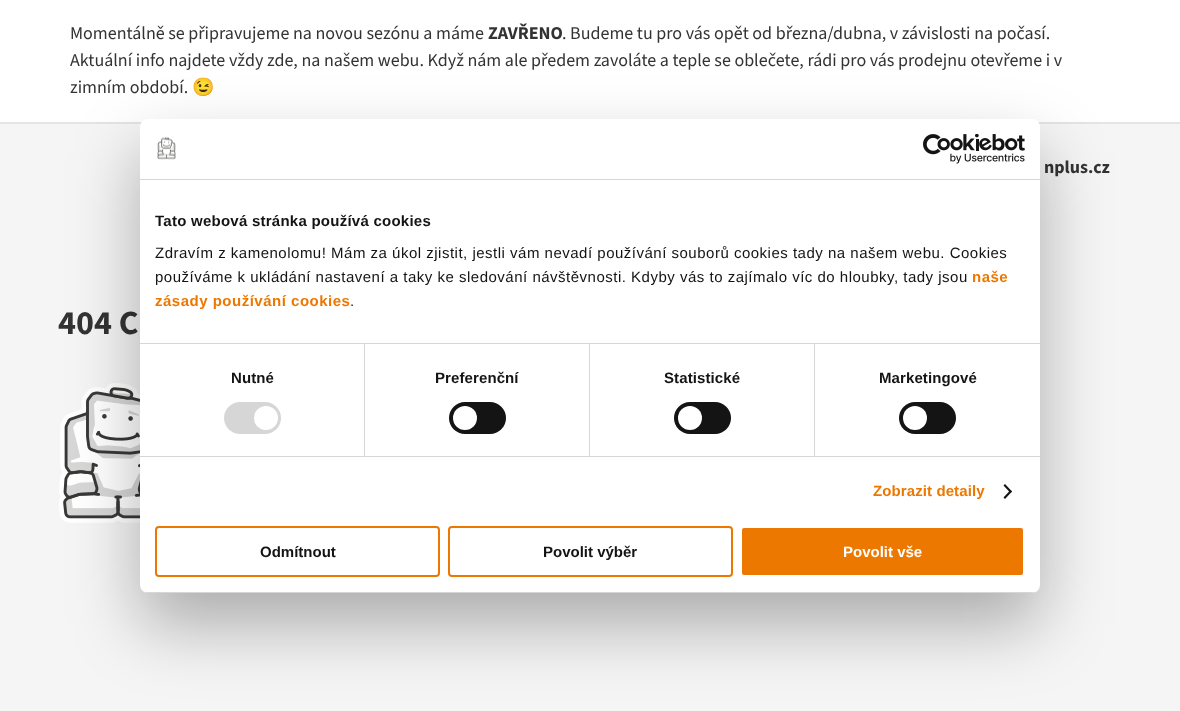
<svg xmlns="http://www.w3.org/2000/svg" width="1180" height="711">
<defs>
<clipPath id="clip1"><rect x="140" y="119" width="900" height="474" rx="8"/></clipPath>
</defs>
<rect width="100%" height="100%" fill="#f5f5f5"/>
<rect width="1180" height="122" fill="#fff"/>
<rect y="122" width="1180" height="2" fill="#e4e4e4"/>
<text x="70" y="39" style="font-family:'Source Sans 3';font-size:18px;fill:#333">Momentálně se připravujeme na novou sezónu a máme</text>
<text x="488" y="39" style="font-family:'Source Sans 3';font-size:18px;font-weight:bold;fill:#333">ZAVŘENO</text>
<text x="562" y="39" style="font-family:'Source Sans 3';font-size:18px;fill:#333">. Budeme tu pro vás opět od března/dubna, v závislosti na počasí.</text>
<text x="70" y="66" style="font-family:'Source Sans 3';font-size:18px;fill:#333">Aktuální info najdete vždy zde, na našem webu. Když nám ale předem zavoláte a teple se oblečete, rádi pro vás prodejnu otevřeme i v</text>
<text x="70" y="93" style="font-family:'Source Sans 3';font-size:18px;fill:#333">zimním období.</text>
<text x="192" y="93" style="font-family:Noto Color Emoji;font-size:18px;fill:#333">😉</text>
<text x="1044" y="173" style="font-family:'Source Sans 3';font-size:18px;font-weight:bold;fill:#333">nplus.cz</text>
<text x="58" y="334" style="font-family:'Source Sans 3';font-size:34px;font-weight:bold;fill:#333">404 C</text>
<image x="59" y="383" width="81" height="140" href="media/1.png"/>
<rect x="140" y="151" width="900" height="474" rx="8" fill="#0000004d" filter="blur(34px)"/>
<rect x="140" y="119" width="900" height="474" rx="8" fill="#fff"/>
<rect x="140" y="179" width="900" height="1" fill="#d6d6d6"/>
<image x="157" y="136" width="19" height="24" href="media/2.png"/>
<image x="923" y="134" width="102" height="30" href="media/3.png"/>
<rect x="140" y="343" width="900" height="1" fill="#d6d6d6"/>
<text x="155" y="226" style="font-family:Liberation Sans;font-size:15px;font-weight:bold;letter-spacing:0.25px;fill:#141414">Tato webová stránka používá cookies</text>
<text x="155" y="258" style="font-family:Liberation Sans;font-size:15px;letter-spacing:0.5px;fill:#141414">Zdravím z kamenolomu! Mám za úkol zjistit, jestli vám nevadí používání souborů cookies tady na našem webu. Cookies</text>
<text x="155" y="282" style="font-family:Liberation Sans;font-size:15px;letter-spacing:0.5px;fill:#141414">používáme k ukládání nastavení a taky ke sledování návštěvnosti. Kdyby vás to zajímalo víc do hloubky, tady jsou</text>
<text x="972" y="282" style="font-family:Liberation Sans;font-size:15px;font-weight:bold;letter-spacing:0.5px;fill:#ec7800">naše</text>
<text x="155" y="306" style="font-family:Liberation Sans;font-size:15px;font-weight:bold;letter-spacing:0.5px;fill:#ec7800">zásady používání cookies</text>
<text x="350" y="306" style="font-family:Liberation Sans;font-size:15px;letter-spacing:0.5px;fill:#141414">.</text>
<rect x="140" y="456" width="900" height="1" fill="#d6d6d6"/>
<rect x="364" y="344" width="1" height="112" fill="#d6d6d6"/>
<text x="231" y="383" style="font-family:Liberation Sans;font-size:15px;font-weight:bold;letter-spacing:0.1px;fill:#141414">Nutné</text>
<rect x="224" y="402" width="57" height="32" rx="16" fill="#d6d6d6"/>
<circle cx="266" cy="418" r="12" fill="#fff"/>
<rect x="589" y="344" width="1" height="112" fill="#d6d6d6"/>
<text x="435" y="383" style="font-family:Liberation Sans;font-size:15px;font-weight:bold;letter-spacing:0.1px;fill:#141414">Preferenční</text>
<rect x="449" y="402" width="57" height="32" rx="16" fill="#141414"/>
<circle cx="465" cy="418" r="12" fill="#fff"/>
<rect x="814" y="344" width="1" height="112" fill="#d6d6d6"/>
<text x="664" y="383" style="font-family:Liberation Sans;font-size:15px;font-weight:bold;letter-spacing:0.1px;fill:#141414">Statistické</text>
<rect x="674" y="402" width="57" height="32" rx="16" fill="#141414"/>
<circle cx="690" cy="418" r="12" fill="#fff"/>
<text x="879" y="383" style="font-family:Liberation Sans;font-size:15px;font-weight:bold;letter-spacing:0.1px;fill:#141414">Marketingové</text>
<rect x="899" y="402" width="57" height="32" rx="16" fill="#141414"/>
<circle cx="915" cy="418" r="12" fill="#fff"/>
<text x="873" y="496" style="font-family:Liberation Sans;font-size:15px;font-weight:bold;letter-spacing:0.1px;fill:#ec7800">Zobrazit detaily</text>
<path d="M1005 484l7 7.5l-1.5 1.5l-7-7.5z" fill="#141414"/>
<path d="M1010.5 490l1.5 1.5l-7 7.5l-1.5-1.5z" fill="#141414"/>
<g clip-path="url(#clip1)">
<rect x="140" y="592" width="900" height="1" fill="#d6d6d6"/>
</g>
<rect x="156" y="527" width="283" height="49" rx="3" fill="none" stroke="#ec7800" stroke-width="2"/>
<text x="260" y="557" style="font-family:Liberation Sans;font-size:15px;font-weight:bold;fill:#141414">Odmítnout</text>
<rect x="449" y="527" width="283" height="49" rx="3" fill="none" stroke="#ec7800" stroke-width="2"/>
<text x="543" y="557" style="font-family:Liberation Sans;font-size:15px;font-weight:bold;fill:#141414">Povolit výběr</text>
<rect x="741" y="527" width="283" height="49" rx="3" fill="#ec7800" stroke="#fff" stroke-width="2"/>
<text x="843" y="557" style="font-family:Liberation Sans;font-size:15px;font-weight:bold;fill:#fff">Povolit vše</text>
</svg>
